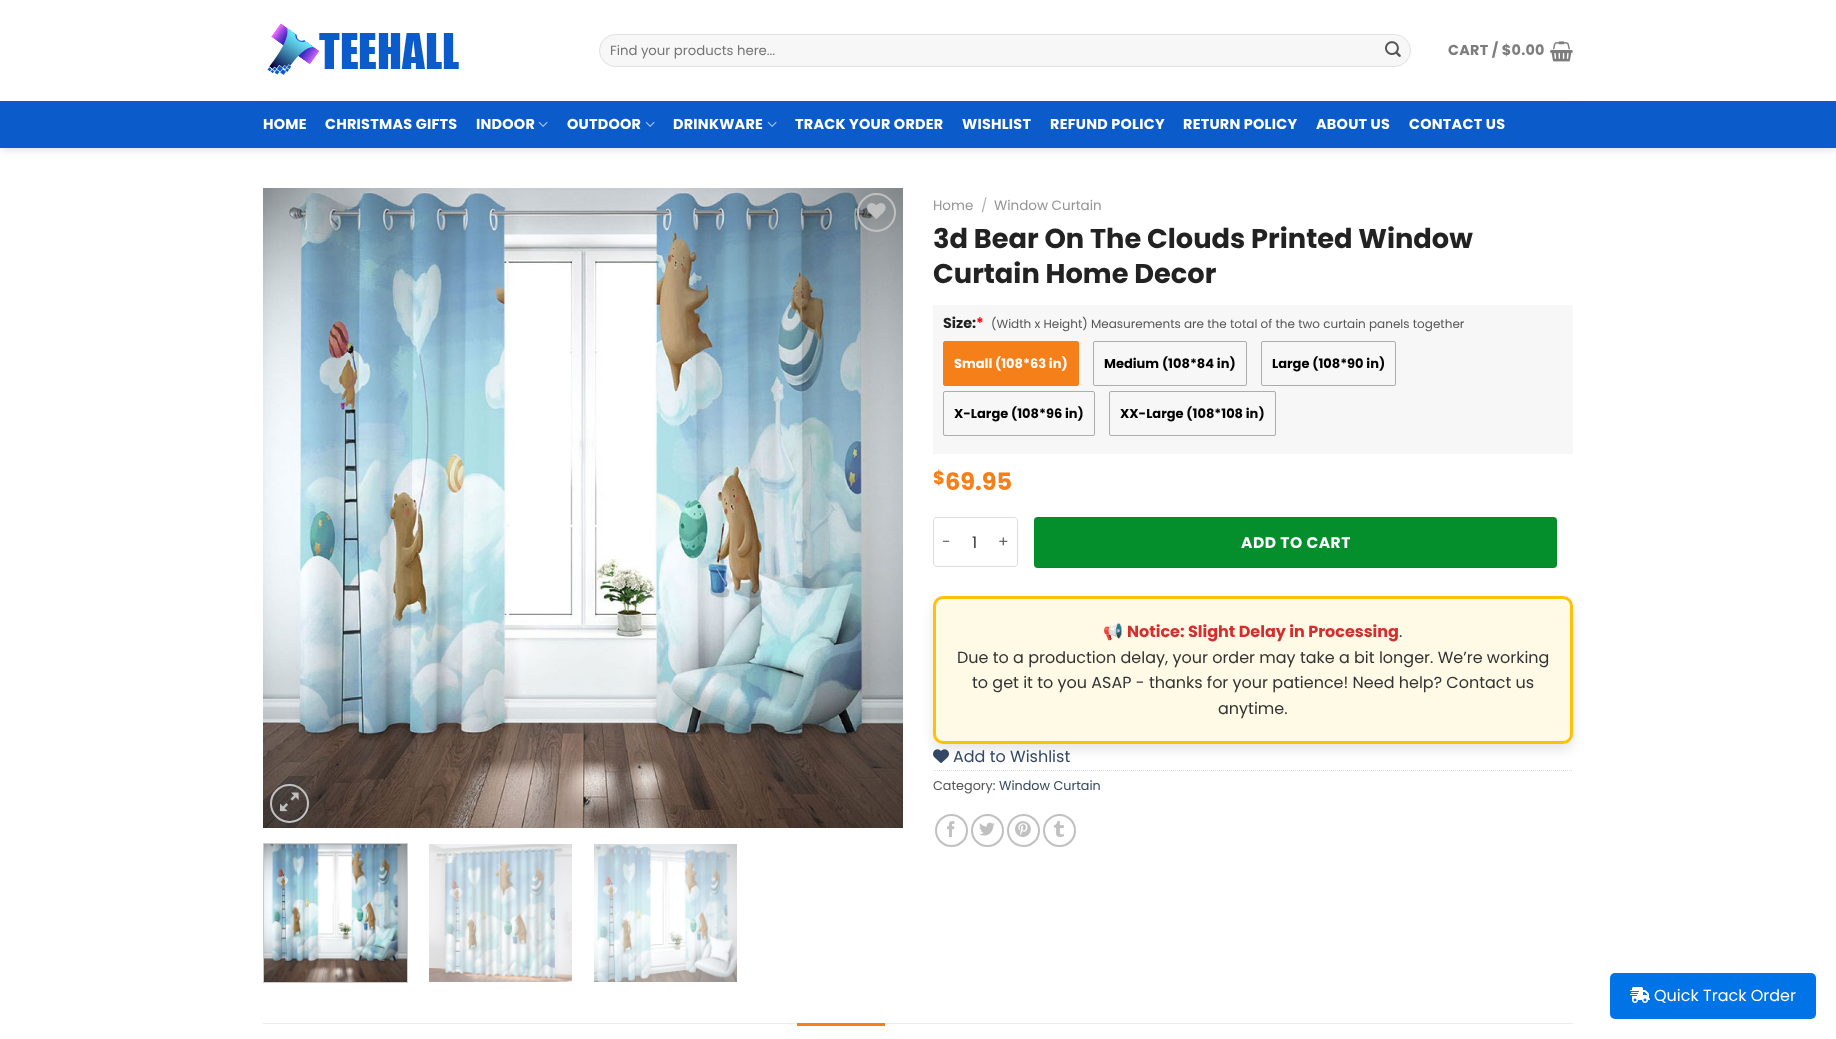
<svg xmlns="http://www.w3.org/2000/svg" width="1836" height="1039">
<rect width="100%" height="100%" fill="#fff"/>
<rect x="1" y="1" width="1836" height="148" fill="#00000026" filter="blur(5px)"/>
<rect width="1836" height="101" fill="#fff"/>
<image x="267" y="23" width="192" height="52" href="media/1.png"/>
<rect x="599" y="34" width="812" height="33" rx="16.5" fill="#f7f7f7"/>
<rect x="599.5" y="34.5" width="811" height="32" rx="16" fill="none" stroke="#00000017"/>
<text x="610" y="55" style="font-family:Poppins;font-size:13.25px;fill:#757575">Find your products here...</text>
<image x="1385" y="41" width="16" height="16" href="media/2.png"/>
<text x="1448" y="55" style="font-family:Poppins;font-size:14.4px;font-weight:bold;letter-spacing:0.25px;fill:#7d7d7d">CART / $0.00</text>
<image x="1550" y="41" width="23" height="21" href="media/3.png"/>
<rect y="101" width="1836" height="47" fill="#0b5bca"/>
<rect x="263" y="101" width="1310" height="1" fill="#125abe"/>
<text x="263" y="129" style="font-family:Poppins;font-size:14.4px;font-weight:bold;letter-spacing:0.25px;fill:#fff">HOME</text>
<text x="325" y="129" style="font-family:Poppins;font-size:14.4px;font-weight:bold;letter-spacing:0.25px;fill:#fff">CHRISTMAS GIFTS</text>
<text x="476" y="129" style="font-family:Poppins;font-size:14.4px;font-weight:bold;letter-spacing:0.25px;fill:#fff">INDOOR</text>
<image x="538" y="121" width="10" height="6" href="media/4.png"/>
<text x="567" y="129" style="font-family:Poppins;font-size:14.4px;font-weight:bold;letter-spacing:0.25px;fill:#fff">OUTDOOR</text>
<image x="645" y="121" width="10" height="6" href="media/4.png"/>
<text x="673" y="129" style="font-family:Poppins;font-size:14.4px;font-weight:bold;letter-spacing:0.25px;fill:#fff">DRINKWARE</text>
<image x="767" y="121" width="10" height="6" href="media/4.png"/>
<text x="795" y="129" style="font-family:Poppins;font-size:14.4px;font-weight:bold;letter-spacing:0.25px;fill:#fff">TRACK YOUR ORDER</text>
<text x="962" y="129" style="font-family:Poppins;font-size:14.4px;font-weight:bold;letter-spacing:0.25px;fill:#fff">WISHLIST</text>
<text x="1050" y="129" style="font-family:Poppins;font-size:14.4px;font-weight:bold;letter-spacing:0.25px;fill:#fff">REFUND POLICY</text>
<text x="1183" y="129" style="font-family:Poppins;font-size:14.4px;font-weight:bold;letter-spacing:0.25px;fill:#fff">RETURN POLICY</text>
<text x="1316" y="129" style="font-family:Poppins;font-size:14.4px;font-weight:bold;letter-spacing:0.25px;fill:#fff">ABOUT US</text>
<text x="1409" y="129" style="font-family:Poppins;font-size:14.4px;font-weight:bold;letter-spacing:0.25px;fill:#fff">CONTACT US</text>
<image x="263" y="188" width="640" height="640" href="media/5.png"/>
<circle cx="876.5" cy="212.5" r="18.5" fill="none" stroke="#c0c0c0" stroke-width="2"/>
<image x="867" y="203" width="19" height="16" href="media/6.png"/>
<circle cx="289.5" cy="803.5" r="18.5" fill="none" stroke="#c0c0c0" stroke-width="2"/>
<image x="280" y="792" width="19" height="20" href="media/7.png"/>
<rect x="263.5" y="843.5" width="144" height="139" fill="none" stroke="#ccc"/>
<image x="264" y="844" width="143" height="138" href="media/8.png"/>
<image x="429" y="844" width="143" height="138" href="media/9.png"/>
<image x="594" y="844" width="143" height="138" href="media/10.png"/>
<text x="933" y="210" style="font-family:Poppins;font-size:13.5px;fill:#949494">Home</text>
<text x="981" y="210" style="font-family:Poppins;font-size:13.5px;fill:#b2b2b2">/</text>
<text x="994" y="210" style="font-family:Poppins;font-size:13.5px;fill:#949494">Window Curtain</text>
<text x="933" y="248" style="font-family:Poppins;font-size:27.25px;font-weight:bold;fill:#222">3d Bear On The Clouds Printed Window</text>
<text x="933" y="283" style="font-family:Poppins;font-size:27.25px;font-weight:bold;fill:#222">Curtain Home Decor</text>
<rect x="933" y="305" width="640" height="149" fill="#f7f7f7"/>
<text x="943" y="328" style="font-family:Poppins;font-size:14.4px;font-weight:bold;fill:#222">Size:</text>
<text x="976" y="328" style="font-family:Poppins;font-size:14.4px;font-weight:bold;fill:#f00">*</text>
<text x="991" y="328" style="font-family:Poppins;font-size:12px;fill:#555">(Width x Height) Measurements are the total of the two curtain panels together</text>
<rect x="943.5" y="341.5" width="135" height="44" rx="1.5" fill="none" stroke="#f57f18"/>
<rect x="944" y="342" width="134" height="43" fill="#f57f18"/>
<text x="954" y="368" style="font-family:Poppins;font-size:13px;font-weight:bold;fill:#fff">Small (108*63 in)</text>
<rect x="1093.5" y="341.5" width="153" height="44" rx="1.5" fill="none" stroke="#adadad"/>
<text x="1104" y="368" style="font-family:Poppins;font-size:13px;font-weight:bold;fill:#000">Medium (108*84 in)</text>
<rect x="1261.5" y="341.5" width="134" height="44" rx="1.5" fill="none" stroke="#adadad"/>
<text x="1272" y="368" style="font-family:Poppins;font-size:13px;font-weight:bold;fill:#000">Large (108*90 in)</text>
<rect x="943.5" y="391.5" width="151" height="44" rx="1.5" fill="none" stroke="#adadad"/>
<text x="954" y="418" style="font-family:Poppins;font-size:13px;font-weight:bold;fill:#000">X-Large (108*96 in)</text>
<rect x="1109.5" y="391.5" width="166" height="44" rx="1.5" fill="none" stroke="#adadad"/>
<text x="1120" y="418" style="font-family:Poppins;font-size:13px;font-weight:bold;fill:#000">XX-Large (108*108 in)</text>
<text x="933" y="484" style="font-family:Poppins;font-size:18px;font-weight:bold;fill:#f57f18">$</text>
<text x="945" y="490" style="font-family:Poppins;font-size:24px;font-weight:bold;fill:#f57f18">69.95</text>
<path d="M937 517h22v50h-22c-2 0-4-2-4-4v-42c0-2 2-4 4-4zm0 1h22v48h-22c-2 0-3-1-3-3v-42c0-2 1-3 3-3z" fill="#ddd" fill-rule="evenodd"/>
<text x="942" y="547" style="font-family:Poppins;font-size:15.5px;letter-spacing:0.5px;fill:#666">-</text>
<rect x="959" y="517" width="32" height="1" fill="#ddd"/>
<rect x="959" y="566" width="32" height="1" fill="#ddd"/>
<text x="972" y="548" style="font-family:Poppins;font-size:16px;fill:#333">1</text>
<path d="M991 517h23c2 0 4 2 4 4v42c0 2-2 4-4 4h-23zm0 1h23c2 0 3 1 3 3v42c0 2-1 3-3 3h-23z" fill="#ddd" fill-rule="evenodd"/>
<text x="998" y="547" style="font-family:Poppins;font-size:15.5px;letter-spacing:0.5px;fill:#666">+</text>
<rect x="1034" y="517" width="523" height="51" rx="4" fill="#058e2c"/>
<rect x="1034.5" y="517.5" width="522" height="50" fill="none" stroke="#0000000d"/>
<text x="1241" y="548" style="font-family:Poppins;font-size:15.5px;font-weight:bold;letter-spacing:0.5px;fill:#fff">ADD TO CART</text>
<rect x="933" y="602" width="640" height="148" rx="10" fill="#0000001a" filter="blur(6px)"/>
<rect x="934.5" y="597.5" width="637" height="145" rx="8.5" fill="#fffae6" stroke="#ffc107" stroke-width="3"/>
<text x="1103" y="637" style="font-family:Noto Color Emoji;font-size:16px;fill:#333">📢</text>
<text x="1127" y="637" style="font-family:Poppins;font-size:16px;font-weight:bold;fill:#d32f2f">Notice: Slight Delay in Processing</text>
<text x="1399" y="637" style="font-family:Poppins;font-size:16px;fill:#333">.</text>
<text x="957" y="663" style="font-family:Poppins;font-size:16px;fill:#333">Due to a production delay, your order may take a bit longer. We’re working</text>
<text x="972" y="688" style="font-family:Poppins;font-size:16px;fill:#333">to get it to you ASAP - thanks for your patience! Need help? Contact us</text>
<text x="1218" y="714" style="font-family:Poppins;font-size:16px;fill:#333">anytime.</text>
<image x="933" y="749" width="16" height="14" href="media/11.png"/>
<text x="953" y="762" style="font-family:Poppins;font-size:16px;fill:#334862">Add to Wishlist</text>
<path d="M933 770.5h640" fill="none" stroke="#ddd" stroke-dasharray="1 1"/>
<text x="933" y="790" style="font-family:Poppins;font-size:12.75px;fill:#555">Category:</text>
<text x="999" y="790" style="font-family:Poppins;font-size:12.75px;fill:#334862">Window Curtain</text>
<circle cx="951.5" cy="830.5" r="15.5" fill="none" stroke="#c0c0c0" stroke-width="2"/>
<image x="947" y="821" width="8" height="16" href="media/12.png"/>
<circle cx="987.5" cy="830.5" r="15.5" fill="none" stroke="#c0c0c0" stroke-width="2"/>
<image x="979" y="822" width="16" height="14" href="media/13.png"/>
<circle cx="1023.5" cy="830.5" r="15.5" fill="none" stroke="#c0c0c0" stroke-width="2"/>
<image x="1015" y="821" width="16" height="16" href="media/14.png"/>
<circle cx="1059.5" cy="830.5" r="15.5" fill="none" stroke="#c0c0c0" stroke-width="2"/>
<image x="1054" y="821" width="10" height="16" href="media/15.png"/>
<rect x="263" y="1023" width="1310" height="1" fill="#ececec"/>
<rect x="797" y="1023" width="88" height="3" fill="#f57f18"/>
<rect x="1610" y="973" width="206" height="46" rx="5" fill="#0073e6"/>
<image x="1630" y="987" width="20" height="16" href="media/16.png"/>
<text x="1654" y="1001" style="font-family:Poppins;font-size:16px;fill:#fff">Quick Track Order</text>
</svg>
